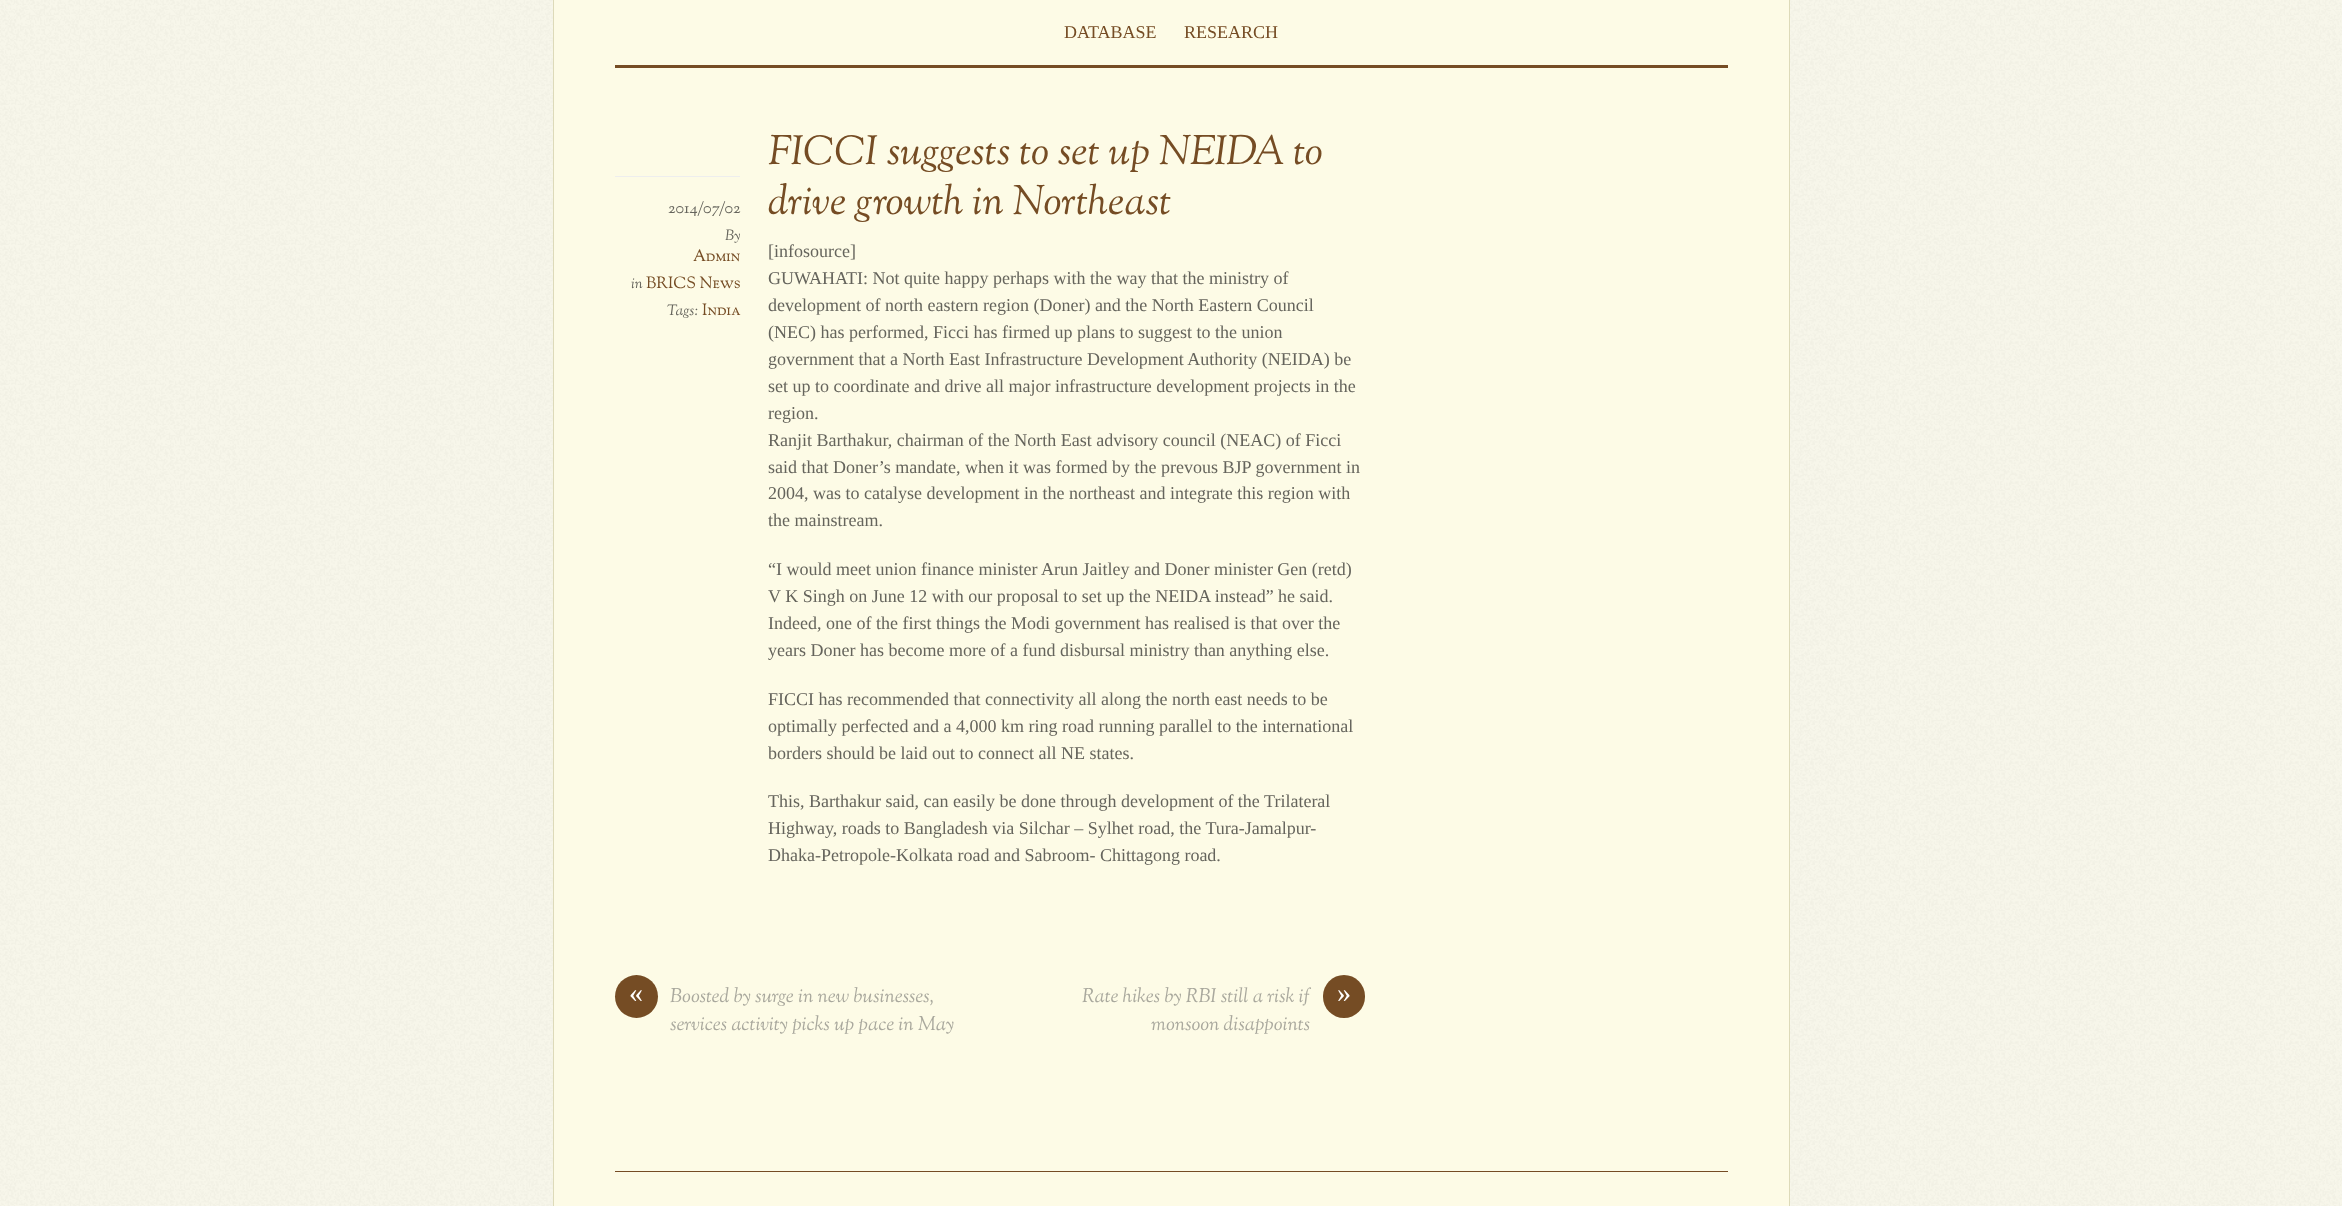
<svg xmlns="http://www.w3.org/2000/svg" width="2342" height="1206">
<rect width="100%" height="100%" fill="#f8f7eb"/>
<image x="0" y="0" width="2342" height="1206" href="media/1.png"/>
<rect x="554" width="1235" height="1206" fill="#fdfbe6"/>
<rect x="1789" width="1" height="1206" fill="#dddab9"/>
<rect x="553" width="1" height="1206" fill="#dddab9"/>
<rect x="615" y="65" width="1113" height="3" fill="#754c24"/>
<text x="1064" y="38" style="font-family:Liberation Serif;font-size:18px;fill:#754c24">DATABASE</text>
<text x="1184" y="38" style="font-family:Liberation Serif;font-size:18px;fill:#754c24">RESEARCH</text>
<rect x="615" y="176" width="125" height="1" fill="#eee"/>
<text x="768" y="164" style="font-family:OFL Sorts Mill Goudy TT;font-size:41px;font-weight:500;font-style:italic;fill:#754c24">FICCI suggests to set up NEIDA to</text>
<text x="768" y="214" style="font-family:OFL Sorts Mill Goudy TT;font-size:41px;font-weight:500;font-style:italic;fill:#754c24">drive growth in Northeast</text>
<text x="668" y="213" style="font-family:OFL Sorts Mill Goudy TT;font-size:16.25px;font-weight:500;fill:#65645c">2014/07/02</text>
<text x="725" y="240" style="font-family:OFL Sorts Mill Goudy TT;font-size:15px;font-weight:500;font-style:italic;fill:#65645c">By</text>
<text x="693" y="261" style="font-family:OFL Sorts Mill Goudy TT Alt;font-size:16.25px;font-weight:500;fill:#754c24">Admin</text>
<text x="631" y="288" style="font-family:OFL Sorts Mill Goudy TT;font-size:15px;font-weight:500;font-style:italic;fill:#65645c">in</text>
<text x="646" y="288" style="font-family:OFL Sorts Mill Goudy TT Alt;font-size:16.25px;font-weight:500;fill:#754c24">BRICS News</text>
<text x="667" y="315" style="font-family:OFL Sorts Mill Goudy TT;font-size:15px;font-weight:500;font-style:italic;fill:#65645c">Tags:</text>
<text x="702" y="315" style="font-family:OFL Sorts Mill Goudy TT Alt;font-size:16.25px;font-weight:500;fill:#754c24">India</text>
<text x="768" y="257" style="font-family:Liberation Serif;font-size:18px;fill:#65645c">[infosource]</text>
<text x="768" y="284" style="font-family:Liberation Serif;font-size:18px;fill:#65645c">GUWAHATI: Not quite happy perhaps with the way that the ministry of</text>
<text x="768" y="311" style="font-family:Liberation Serif;font-size:18px;fill:#65645c">development of north eastern region (Doner) and the North Eastern Council</text>
<text x="768" y="338" style="font-family:Liberation Serif;font-size:18px;fill:#65645c">(NEC) has performed, Ficci has firmed up plans to suggest to the union</text>
<text x="768" y="365" style="font-family:Liberation Serif;font-size:18px;fill:#65645c">government that a North East Infrastructure Development Authority (NEIDA) be</text>
<text x="768" y="392" style="font-family:Liberation Serif;font-size:18px;fill:#65645c">set up to coordinate and drive all major infrastructure development projects in the</text>
<text x="768" y="419" style="font-family:Liberation Serif;font-size:18px;fill:#65645c">region.</text>
<text x="768" y="446" style="font-family:Liberation Serif;font-size:18px;fill:#65645c">Ranjit Barthakur, chairman of the North East advisory council (NEAC) of Ficci</text>
<text x="768" y="473" style="font-family:Liberation Serif;font-size:18px;fill:#65645c">said that Doner’s mandate, when it was formed by the prevous BJP government in</text>
<text x="768" y="499" style="font-family:Liberation Serif;font-size:18px;fill:#65645c">2004, was to catalyse development in the northeast and integrate this region with</text>
<text x="768" y="526" style="font-family:Liberation Serif;font-size:18px;fill:#65645c">the mainstream.</text>
<text x="768" y="575" style="font-family:Liberation Serif;font-size:18px;fill:#65645c">“I would meet union finance minister Arun Jaitley and Doner minister Gen (retd)</text>
<text x="768" y="602" style="font-family:Liberation Serif;font-size:18px;fill:#65645c">V K Singh on June 12 with our proposal to set up the NEIDA instead” he said.</text>
<text x="768" y="629" style="font-family:Liberation Serif;font-size:18px;fill:#65645c">Indeed, one of the first things the Modi government has realised is that over the</text>
<text x="768" y="656" style="font-family:Liberation Serif;font-size:18px;fill:#65645c">years Doner has become more of a fund disbursal ministry than anything else.</text>
<text x="768" y="705" style="font-family:Liberation Serif;font-size:18px;fill:#65645c">FICCI has recommended that connectivity all along the north east needs to be</text>
<text x="768" y="732" style="font-family:Liberation Serif;font-size:18px;fill:#65645c">optimally perfected and a 4,000 km ring road running parallel to the international</text>
<text x="768" y="759" style="font-family:Liberation Serif;font-size:18px;fill:#65645c">borders should be laid out to connect all NE states.</text>
<text x="768" y="807" style="font-family:Liberation Serif;font-size:18px;fill:#65645c">This, Barthakur said, can easily be done through development of the Trilateral</text>
<text x="768" y="834" style="font-family:Liberation Serif;font-size:18px;fill:#65645c">Highway, roads to Bangladesh via Silchar – Sylhet road, the Tura-Jamalpur-</text>
<text x="768" y="861" style="font-family:Liberation Serif;font-size:18px;fill:#65645c">Dhaka-Petropole-Kolkata road and Sabroom- Chittagong road.</text>
<circle cx="636.5" cy="996.5" r="21.5" fill="#754c24"/>
<text x="629" y="1002" style="font-family:Liberation Serif;font-size:28px;fill:#fff">«</text>
<text x="670" y="1002" style="font-family:OFL Sorts Mill Goudy TT;font-size:19.75px;font-weight:500;font-style:italic;fill:#a9a89d">Boosted by surge in new businesses,</text>
<text x="670" y="1030" style="font-family:OFL Sorts Mill Goudy TT;font-size:19.75px;font-weight:500;font-style:italic;fill:#a9a89d">services activity picks up pace in May</text>
<text x="1082" y="1002" style="font-family:OFL Sorts Mill Goudy TT;font-size:19.75px;font-weight:500;font-style:italic;fill:#a9a89d">Rate hikes by RBI still a risk if</text>
<rect x="1323" y="975" width="42" height="43" rx="21" fill="#754c24"/>
<text x="1337" y="1002" style="font-family:Liberation Serif;font-size:28px;fill:#fff">»</text>
<text x="1151" y="1030" style="font-family:OFL Sorts Mill Goudy TT;font-size:19.75px;font-weight:500;font-style:italic;fill:#a9a89d">monsoon disappoints</text>
<rect x="615" y="1171" width="1113" height="1" fill="#754c24"/>
</svg>
